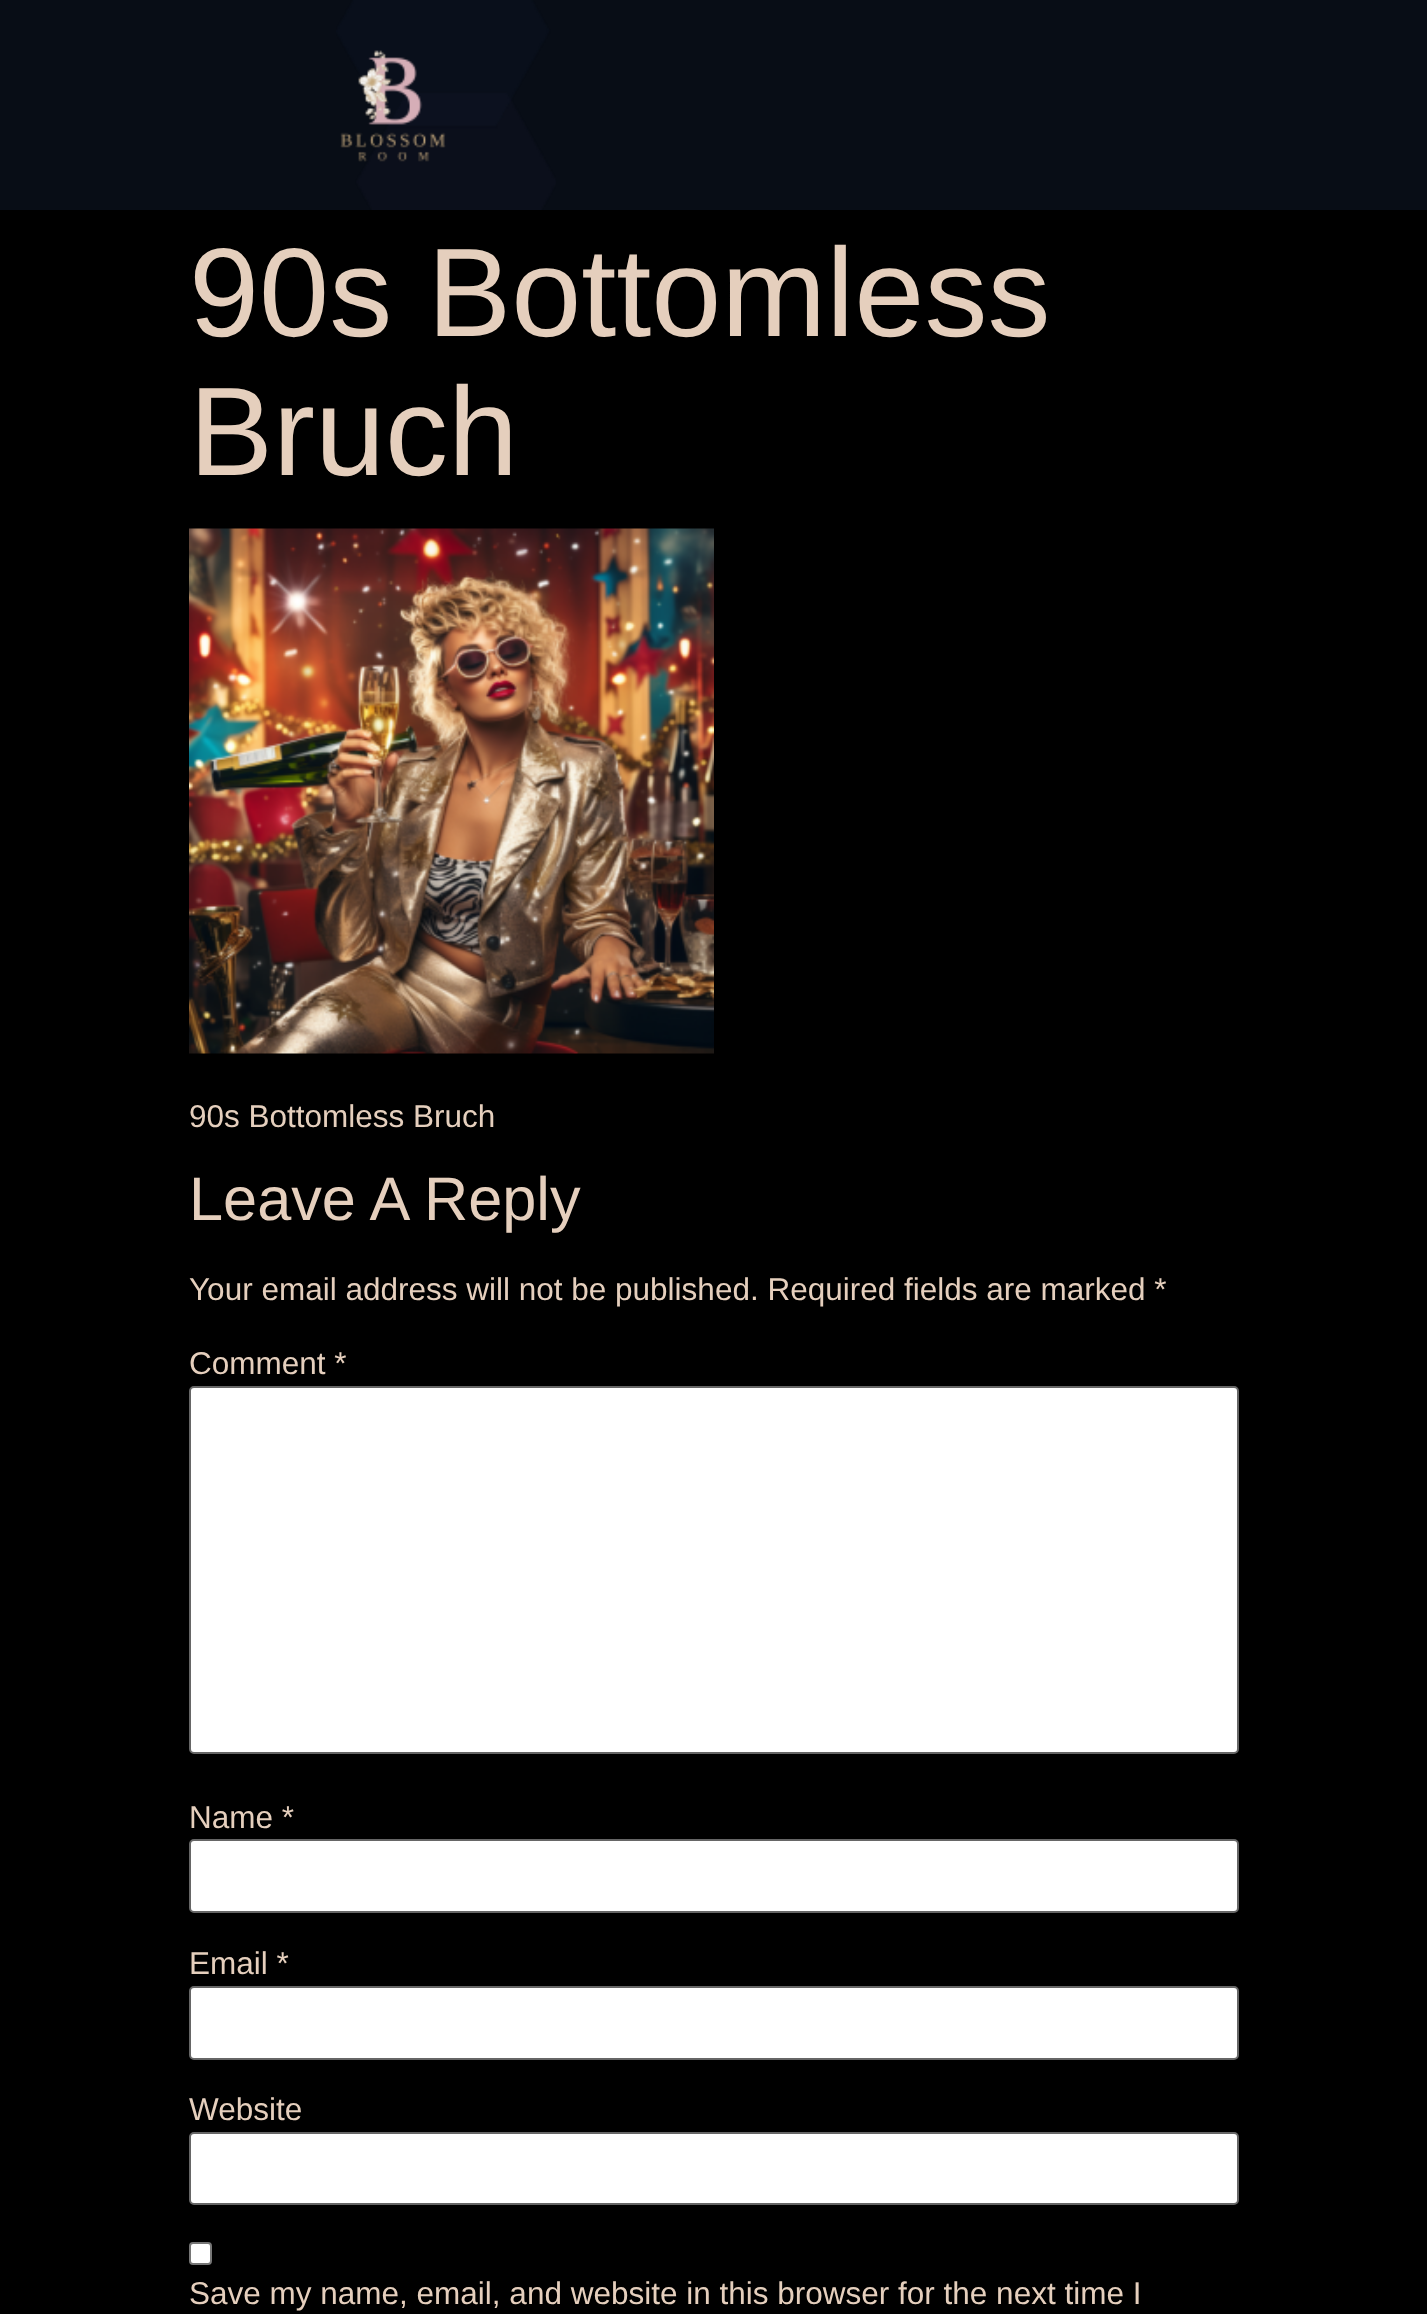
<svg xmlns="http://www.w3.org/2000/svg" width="1427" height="2314">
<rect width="100%" height="100%" fill="#000"/>
<rect width="1427" height="210" fill="#080d16"/>
<image x="336" y="0" width="220" height="210" href="media/1.png"/>
<image x="340" y="50" width="106" height="112" href="media/2.png"/>
<text x="189" y="336" style="font-family:Liberation Sans;font-size:126px;fill:#e5cfbd">90s Bottomless</text>
<text x="189" y="475" style="font-family:Liberation Sans;font-size:126px;fill:#e5cfbd">Bruch</text>
<image x="189" y="528" width="525" height="526" href="media/3.png"/>
<text x="189" y="1127" style="font-family:Liberation Sans;font-size:31.5px;fill:#e5cfbd">90s Bottomless Bruch</text>
<text x="189" y="1220" style="font-family:Liberation Sans;font-size:61.25px;fill:#e5cfbd">Leave A Reply</text>
<text x="189" y="1300" style="font-family:Liberation Sans;font-size:31.5px;fill:#e5cfbd">Your email address will not be published. Required fields are marked *</text>
<text x="189" y="1374" style="font-family:Liberation Sans;font-size:31.5px;fill:#e5cfbd">Comment *</text>
<rect x="190" y="1387" width="1048" height="366" rx="4" fill="#fff" stroke="#666" stroke-width="2"/>
<text x="189" y="1828" style="font-family:Liberation Sans;font-size:31.5px;fill:#e5cfbd">Name *</text>
<rect x="190" y="1840" width="1048" height="72" rx="4" fill="#fff" stroke="#666" stroke-width="2"/>
<text x="189" y="1974" style="font-family:Liberation Sans;font-size:31.5px;fill:#e5cfbd">Email *</text>
<rect x="190" y="1987" width="1048" height="72" rx="4" fill="#fff" stroke="#666" stroke-width="2"/>
<text x="189" y="2120" style="font-family:Liberation Sans;font-size:31.5px;fill:#e5cfbd">Website</text>
<rect x="190" y="2133" width="1048" height="71" rx="4" fill="#fff" stroke="#666" stroke-width="2"/>
<rect x="190" y="2243" width="21" height="21" rx="3" fill="#fff" stroke="#767676" stroke-width="2"/>
<text x="189" y="2304" style="font-family:Liberation Sans;font-size:31.5px;fill:#e5cfbd">Save my name, email, and website in this browser for the next time I</text>
</svg>
